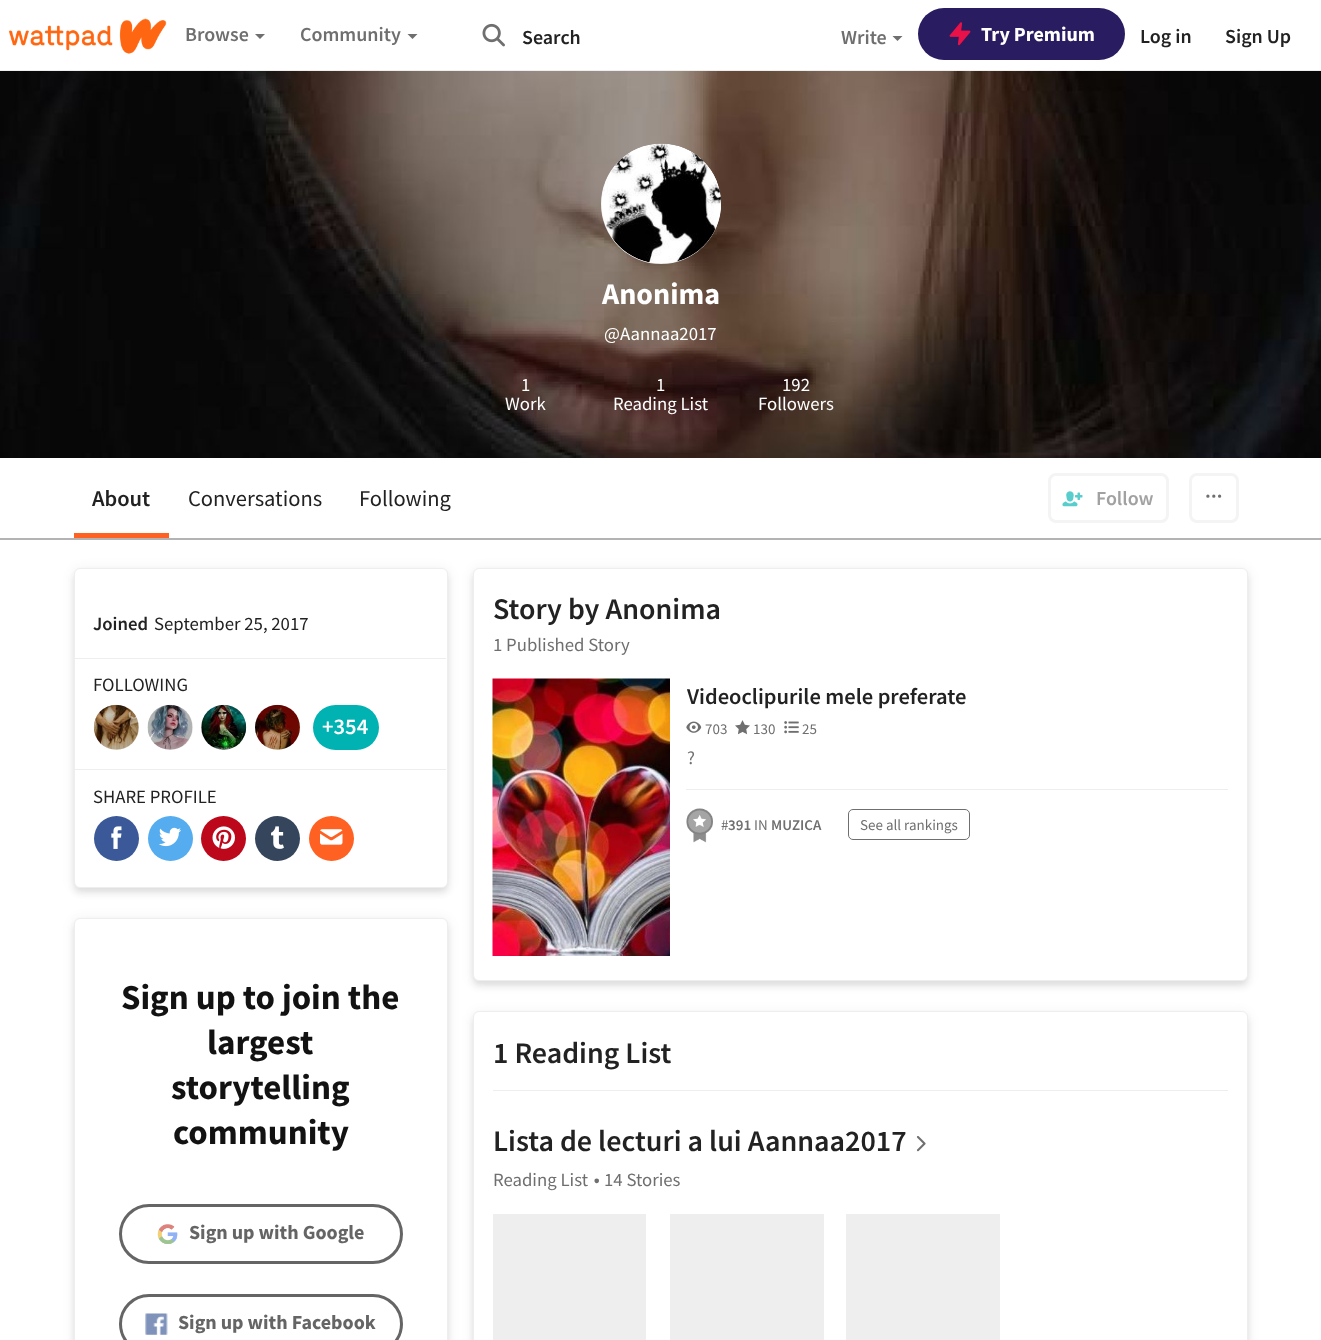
<svg xmlns="http://www.w3.org/2000/svg" width="1321" height="1340">
<rect width="100%" height="100%" fill="#fff"/>
<rect y="70" width="1321" height="1" fill="#eee"/>
<image x="8" y="18" width="159" height="36" href="media/1.png"/>
<text x="185" y="41" style="font-family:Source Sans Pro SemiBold;font-size:20px;font-weight:600;fill:#6f6f6f">Browse</text>
<path d="M255 34h10l-5 5z" fill="#6f6f6f"/>
<text x="300" y="41" style="font-family:Source Sans Pro SemiBold;font-size:20px;font-weight:600;fill:#6f6f6f">Community</text>
<path d="M407.5 34h10l-5 5z" fill="#6f6f6f"/>
<image x="482" y="23" width="23" height="24" href="media/2.png"/>
<text x="522" y="44" style="font-family:Source Sans Pro SemiBold;font-size:20px;font-weight:600;fill:#222">Search</text>
<text x="841" y="44" style="font-family:Source Sans Pro SemiBold;font-size:20px;font-weight:600;fill:#6f6f6f">Write</text>
<path d="M892.5 36h10l-5 5z" fill="#6f6f6f"/>
<rect x="918" y="8" width="207" height="52" rx="26" fill="#2a1c60"/>
<image x="949" y="22" width="22" height="24" href="media/3.png"/>
<text x="981" y="41" style="font-family:Source Sans Pro;font-size:20px;font-weight:bold;fill:#fff">Try Premium</text>
<text x="1140" y="43" style="font-family:Source Sans Pro SemiBold;font-size:20px;font-weight:600;fill:#222">Log in</text>
<text x="1225" y="43" style="font-family:Source Sans Pro SemiBold;font-size:20px;font-weight:600;fill:#222">Sign Up</text>
<image x="0" y="71" width="1321" height="387" href="media/4.png"/>
<circle cx="661" cy="204" r="60" fill="#eee"/>
<image x="601" y="143" width="120" height="120" href="media/5.png"/>
<text x="602" y="304" style="font-family:Source Sans Pro;font-size:30px;font-weight:bold;fill:#fff">Anonima</text>
<text x="604" y="340" style="font-family:Source Sans Pro;font-size:18.75px;fill:#fff">@Aannaa2017</text>
<text x="521" y="391" style="font-family:Source Sans Pro;font-size:18.75px;fill:#fff">1</text>
<text x="505" y="410" style="font-family:Source Sans Pro;font-size:18.75px;fill:#fff">Work</text>
<text x="656" y="391" style="font-family:Source Sans Pro;font-size:18.75px;fill:#fff">1</text>
<text x="613" y="410" style="font-family:Source Sans Pro;font-size:18.75px;fill:#fff">Reading List</text>
<text x="782" y="391" style="font-family:Source Sans Pro;font-size:18.75px;fill:#fff">192</text>
<text x="758" y="410" style="font-family:Source Sans Pro;font-size:18.75px;fill:#fff">Followers</text>
<rect y="538" width="1321" height="2" fill="#b3b3b3"/>
<rect x="74" y="533" width="95" height="5" fill="#ff6122"/>
<text x="92" y="506" style="font-family:Source Sans Pro SemiBold;font-size:22.5px;font-weight:600;fill:#222">About</text>
<text x="188" y="506" style="font-family:Source Sans Pro;font-size:22.5px;fill:#222">Conversations</text>
<text x="359" y="506" style="font-family:Source Sans Pro;font-size:22.5px;fill:#222">Following</text>
<rect x="1049.5" y="474.5" width="118" height="47" rx="6.5" fill="none" stroke="#f4f4f4" stroke-width="3"/>
<image x="1062" y="491" width="21" height="16" href="media/6.png"/>
<text x="1096" y="505" style="font-family:Source Sans Pro SemiBold;font-size:20px;font-weight:600;fill:#a1a1a1">Follow</text>
<rect x="1190.5" y="474.5" width="47" height="47" rx="6.5" fill="none" stroke="#f4f4f4" stroke-width="3"/>
<circle cx="1207.9" cy="496.2" r="0.8" fill="none" stroke="#6f6f6f" stroke-width="1.7"/>
<circle cx="1213.8" cy="496.2" r="0.8" fill="none" stroke="#6f6f6f" stroke-width="1.7"/>
<circle cx="1219.6" cy="496.2" r="0.8" fill="none" stroke="#6f6f6f" stroke-width="1.7"/>
<rect x="74" y="573" width="374" height="320" rx="6" fill="#2222221a" filter="blur(3px)"/>
<rect x="74" y="569" width="374" height="320" rx="6" fill="#22222214" filter="blur(6px)"/>
<rect x="74.5" y="568.5" width="373" height="319" rx="5.5" fill="#fff" stroke="#eee"/>
<text x="93" y="630" style="font-family:Source Sans Pro SemiBold;font-size:18.75px;font-weight:600;fill:#222">Joined</text>
<text x="154" y="630" style="font-family:Source Sans Pro;font-size:18.75px;fill:#222">September 25, 2017</text>
<rect x="75" y="658" width="371" height="1" fill="#eee"/>
<text x="93" y="691" style="font-family:Source Sans Pro;font-size:18.75px;fill:#222">FOLLOWING</text>
<circle cx="116.5" cy="727.5" r="22.5" fill="#eee"/>
<image x="93" y="704" width="46" height="46" href="media/7.png"/>
<circle cx="170.5" cy="727.5" r="22.5" fill="#eee"/>
<image x="147" y="704" width="46" height="46" href="media/8.png"/>
<circle cx="223.5" cy="727.5" r="22.5" fill="#eee"/>
<image x="201" y="704" width="46" height="46" href="media/9.png"/>
<circle cx="277.5" cy="727.5" r="22.5" fill="#eee"/>
<image x="255" y="704" width="45" height="46" href="media/10.png"/>
<rect x="313" y="705" width="66" height="45" rx="22.5" fill="#00b2b2"/>
<text x="322" y="734" style="font-family:Source Sans Pro SemiBold;font-size:22.5px;font-weight:600;fill:#fff">+354</text>
<rect x="75" y="769" width="371" height="1" fill="#eee"/>
<text x="93" y="803" style="font-family:Source Sans Pro;font-size:18.75px;fill:#222">SHARE PROFILE</text>
<circle cx="116.5" cy="838.5" r="22.5" fill="#3b5998"/>
<image x="111" y="826" width="11" height="23" href="media/11.png"/>
<circle cx="170.5" cy="838.5" r="22.5" fill="#55acee"/>
<image x="159" y="827" width="22" height="20" href="media/12.png"/>
<circle cx="223.5" cy="838.5" r="22.5" fill="#bd081c"/>
<image x="212" y="826" width="23" height="23" href="media/13.png"/>
<circle cx="277.5" cy="838.5" r="22.5" fill="#35465c"/>
<image x="271" y="826" width="13" height="23" href="media/14.png"/>
<circle cx="331.5" cy="838.5" r="22.5" fill="#ff6122"/>
<image x="320" y="829" width="23" height="16" href="media/15.png"/>
<rect x="74" y="923" width="374" height="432" rx="6" fill="#2222221a" filter="blur(3px)"/>
<rect x="74" y="919" width="374" height="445" rx="6" fill="#22222214" filter="blur(6px)"/>
<rect x="74.5" y="918.5" width="373" height="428" rx="5.5" fill="#fff" stroke="#eee"/>
<text x="121" y="1009" style="font-family:Source Sans Pro;font-size:35px;font-weight:bold;fill:#121212">Sign up to join the</text>
<text x="207" y="1054" style="font-family:Source Sans Pro;font-size:35px;font-weight:bold;fill:#121212">largest</text>
<text x="171" y="1099" style="font-family:Source Sans Pro;font-size:35px;font-weight:bold;fill:#121212">storytelling</text>
<text x="173" y="1144" style="font-family:Source Sans Pro;font-size:35px;font-weight:bold;fill:#121212">community</text>
<rect x="120.5" y="1205.5" width="281" height="57" rx="28.5" fill="none" stroke="#656565" stroke-width="3"/>
<image x="157" y="1224" width="21" height="20" href="media/16.png"/>
<text x="189" y="1239" style="font-family:Source Sans Pro;font-size:20px;font-weight:bold;fill:#656565">Sign up with Google</text>
<rect x="120.5" y="1295.5" width="281" height="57" rx="28.5" fill="none" stroke="#656565" stroke-width="3"/>
<image x="145" y="1313" width="23" height="22" href="media/17.png"/>
<text x="178" y="1329" style="font-family:Source Sans Pro;font-size:20px;font-weight:bold;fill:#656565">Sign up with Facebook</text>
<rect x="473" y="573" width="775" height="413" rx="6" fill="#2222221a" filter="blur(3px)"/>
<rect x="473" y="569" width="775" height="414" rx="6" fill="#22222214" filter="blur(6px)"/>
<rect x="473.5" y="568.5" width="774" height="412" rx="5.5" fill="#fff" stroke="#eee"/>
<text x="493" y="619" style="font-family:Source Sans Pro SemiBold;font-size:30px;font-weight:600;fill:#222">Story by Anonima</text>
<text x="493" y="651" style="font-family:Source Sans Pro;font-size:18.75px;fill:#6f6f6f">1 Published Story</text>
<image x="492" y="678" width="178" height="278" href="media/18.png"/>
<text x="687" y="704" style="font-family:Source Sans Pro SemiBold;font-size:22.5px;font-weight:600;fill:#222">Videoclipurile mele preferate</text>
<image x="686" y="721" width="16" height="12" href="media/19.png"/>
<text x="705" y="734" style="font-family:Source Sans Pro;font-size:15px;fill:#6f6f6f">703</text>
<image x="735" y="720" width="15" height="15" href="media/20.png"/>
<text x="753" y="734" style="font-family:Source Sans Pro;font-size:15px;fill:#6f6f6f">130</text>
<image x="784" y="721" width="15" height="13" href="media/21.png"/>
<text x="802" y="734" style="font-family:Source Sans Pro;font-size:15px;fill:#6f6f6f">25</text>
<text x="687" y="764" style="font-family:Source Sans Pro;font-size:18.75px;fill:#6f6f6f">?</text>
<rect x="686" y="789" width="542" height="1" fill="#eee"/>
<image x="686" y="808" width="27" height="35" href="media/22.png"/>
<text x="721" y="830" style="font-family:Source Sans Pro;font-size:15px;fill:#6f6f6f">#</text>
<text x="728" y="830" style="font-family:Source Sans Pro SemiBold;font-size:15px;font-weight:600;fill:#6f6f6f">391</text>
<text x="754" y="830" style="font-family:Source Sans Pro;font-size:15px;fill:#6f6f6f">IN</text>
<text x="771" y="830" style="font-family:Source Sans Pro SemiBold;font-size:15px;font-weight:600;fill:#6f6f6f">MUZICA</text>
<rect x="848.5" y="809.5" width="121" height="30" rx="4.5" fill="none" stroke="#6f6f6f"/>
<text x="860" y="830" style="font-family:Source Sans Pro;font-size:15px;fill:#6f6f6f">See all rankings</text>
<rect x="473" y="1016" width="775" height="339" rx="6" fill="#2222221a" filter="blur(3px)"/>
<rect x="473" y="1013" width="775" height="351" rx="6" fill="#22222214" filter="blur(6px)"/>
<rect x="473.5" y="1011.5" width="774" height="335" rx="5.5" fill="#fff" stroke="#eee"/>
<text x="493" y="1063" style="font-family:Source Sans Pro SemiBold;font-size:30px;font-weight:600;fill:#222">1 Reading List</text>
<rect x="493" y="1090" width="735" height="1" fill="#eee"/>
<text x="493" y="1151" style="font-family:Source Sans Pro SemiBold;font-size:30px;font-weight:600;fill:#222">Lista de lecturi a lui Aannaa2017</text>
<image x="916" y="1136" width="10" height="16" href="media/23.png"/>
<text x="493" y="1186" style="font-family:Source Sans Pro;font-size:18.75px;fill:#6f6f6f">Reading List</text>
<text x="592" y="1193" style="font-family:Source Sans Pro;font-size:38px;fill:#6f6f6f">·</text>
<text x="604" y="1186" style="font-family:Source Sans Pro;font-size:18.75px;fill:#6f6f6f">14 Stories</text>
<rect x="493" y="1214" width="153" height="126" fill="#eee"/>
<rect x="670" y="1214" width="154" height="126" fill="#eee"/>
<rect x="846" y="1214" width="154" height="126" fill="#eee"/>
</svg>
